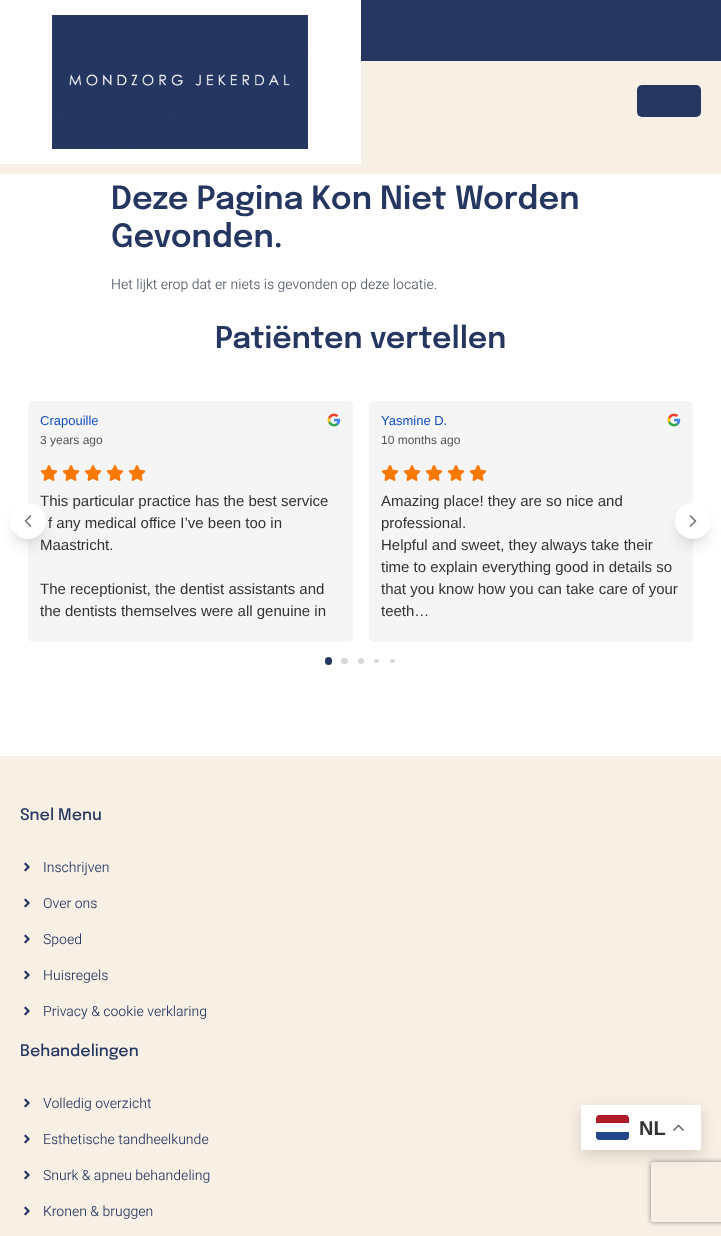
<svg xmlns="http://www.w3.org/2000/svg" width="721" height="1236">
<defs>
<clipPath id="clip1"><path d="M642 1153h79v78h-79zm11 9h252c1 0 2 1 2 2v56c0 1-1 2-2 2h-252c-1 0-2-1-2-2v-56c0-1 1-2 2-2z" clip-rule="evenodd"/></clipPath>
</defs>
<rect width="100%" height="100%" fill="#fff"/>
<rect x="361" width="360" height="61" fill="#253761"/>
<rect y="61" width="721" height="113" fill="#f8f0e4"/>
<rect y="61" width="361" height="103" fill="#fff"/>
<image x="52" y="15" width="256" height="134" href="media/1.png"/>
<rect x="637" y="85" width="64" height="32" rx="5" fill="#253761"/>
<text x="111" y="209" style="font-family:Epilogue;font-size:32px;font-weight:600;fill:#253761">Deze Pagina Kon Niet Worden</text>
<text x="111" y="247" style="font-family:Epilogue;font-size:32px;font-weight:600;fill:#253761">Gevonden.</text>
<text x="111" y="289" style="font-family:Heebo;font-size:14px;font-weight:300;fill:#525766">Het lijkt erop dat er niets is gevonden op deze locatie.</text>
<text x="215" y="348" style="font-family:Epilogue;font-size:30px;font-weight:600;fill:#253761">Patiënten vertellen</text>
<rect x="28" y="401" width="325" height="241" rx="5" fill="#f5f5f5"/>
<rect x="14" y="511" width="28" height="28" rx="14" fill="#0000001a" filter="blur(3px)"/>
<rect x="13" y="516" width="30" height="30" rx="15" fill="#0000001a" filter="blur(7.5px)"/>
<text x="40" y="506" style="font-family:Liberation Sans;font-size:15px;fill:#333">This particular practice has the best service</text>
<circle cx="28" cy="521" r="18" fill="#fff"/>
<path d="M30.5 526l-5-5l5-5" fill="none" stroke="#777" stroke-width="1.7" stroke-linecap="round" stroke-linejoin="round"/>
<text x="40" y="425" style="font-family:Liberation Sans;font-size:13px;fill:#154fc1">Crapouille</text>
<text x="40" y="444" style="font-family:Liberation Sans;font-size:12px;fill:#555">3 years ago</text>
<image x="327" y="413" width="14" height="14" href="media/2.png"/>
<image x="40" y="465" width="18" height="16" href="media/3.png"/>
<image x="62" y="465" width="18" height="16" href="media/3.png"/>
<image x="84" y="465" width="18" height="16" href="media/3.png"/>
<image x="106" y="465" width="18" height="16" href="media/3.png"/>
<image x="128" y="465" width="18" height="16" href="media/3.png"/>
<text x="48" y="528" style="font-family:Liberation Sans;font-size:15px;fill:#333">f any medical office I’ve been too in</text>
<text x="40" y="550" style="font-family:Liberation Sans;font-size:15px;fill:#333">Maastricht.</text>
<text x="40" y="594" style="font-family:Liberation Sans;font-size:15px;fill:#333">The receptionist, the dentist assistants and</text>
<text x="40" y="616" style="font-family:Liberation Sans;font-size:15px;fill:#333">the dentists themselves were all genuine in</text>
<rect x="369" y="401" width="324" height="241" rx="5" fill="#f5f5f5"/>
<text x="381" y="425" style="font-family:Liberation Sans;font-size:13px;fill:#154fc1">Yasmine D.</text>
<text x="381" y="444" style="font-family:Liberation Sans;font-size:12px;fill:#555">10 months ago</text>
<image x="667" y="413" width="14" height="14" href="media/2.png"/>
<image x="381" y="465" width="18" height="16" href="media/3.png"/>
<image x="403" y="465" width="18" height="16" href="media/3.png"/>
<image x="425" y="465" width="18" height="16" href="media/3.png"/>
<image x="447" y="465" width="18" height="16" href="media/3.png"/>
<image x="469" y="465" width="18" height="16" href="media/3.png"/>
<text x="381" y="506" style="font-family:Liberation Sans;font-size:15px;fill:#333">Amazing place! they are so nice and</text>
<text x="381" y="528" style="font-family:Liberation Sans;font-size:15px;fill:#333">professional.</text>
<text x="381" y="550" style="font-family:Liberation Sans;font-size:15px;fill:#333">Helpful and sweet, they always take their</text>
<text x="381" y="572" style="font-family:Liberation Sans;font-size:15px;fill:#333">time to explain everything good in details so</text>
<text x="381" y="594" style="font-family:Liberation Sans;font-size:15px;fill:#333">that you know how you can take care of your</text>
<text x="381" y="616" style="font-family:Liberation Sans;font-size:15px;fill:#333">teeth…</text>
<rect x="679" y="511" width="28" height="28" rx="14" fill="#0000001a" filter="blur(3px)"/>
<rect x="678" y="516" width="30" height="30" rx="15" fill="#0000001a" filter="blur(7.5px)"/>
<circle cx="693" cy="521" r="18" fill="#fff"/>
<path d="M690.5 526l5-5l-5-5" fill="none" stroke="#777" stroke-width="1.7" stroke-linecap="round" stroke-linejoin="round"/>
<rect x="325" y="657" width="7" height="8" rx="3.5" fill="#243761"/>
<rect x="341" y="658" width="7" height="6" rx="3" fill="#d6d6d6"/>
<circle cx="361" cy="661" r="3" fill="#d6d6d6"/>
<rect x="374" y="659" width="5" height="4" rx="2" fill="#d6d6d6"/>
<rect x="390" y="659" width="5" height="4" rx="2" fill="#d6d6d6"/>
<rect y="756" width="721" height="480" fill="#f8f0e4"/>
<text x="20" y="820" style="font-family:Epilogue;font-size:16px;font-weight:500;fill:#253761">Snel Menu</text>
<image x="24" y="862" width="6" height="10" href="media/4.png"/>
<text x="43" y="872" style="font-family:Heebo;font-size:14px;font-weight:300;fill:#253761">Inschrijven</text>
<image x="24" y="898" width="6" height="10" href="media/4.png"/>
<text x="43" y="908" style="font-family:Heebo;font-size:14px;font-weight:300;fill:#253761">Over ons</text>
<image x="24" y="934" width="6" height="10" href="media/4.png"/>
<text x="43" y="944" style="font-family:Heebo;font-size:14px;font-weight:300;fill:#253761">Spoed</text>
<image x="24" y="970" width="6" height="10" href="media/4.png"/>
<text x="43" y="980" style="font-family:Heebo;font-size:14px;font-weight:300;fill:#253761">Huisregels</text>
<image x="24" y="1006" width="6" height="10" href="media/4.png"/>
<text x="43" y="1016" style="font-family:Heebo;font-size:14px;font-weight:300;fill:#253761">Privacy &amp; cookie verklaring</text>
<text x="20" y="1056" style="font-family:Epilogue;font-size:16px;font-weight:500;fill:#253761">Behandelingen</text>
<image x="24" y="1098" width="6" height="10" href="media/4.png"/>
<text x="43" y="1108" style="font-family:Heebo;font-size:14px;font-weight:300;fill:#253761">Volledig overzicht</text>
<image x="24" y="1134" width="6" height="10" href="media/4.png"/>
<text x="43" y="1144" style="font-family:Heebo;font-size:14px;font-weight:300;fill:#253761">Esthetische tandheelkunde</text>
<image x="24" y="1170" width="6" height="10" href="media/4.png"/>
<text x="43" y="1180" style="font-family:Heebo;font-size:14px;font-weight:300;fill:#253761">Snurk &amp; apneu behandeling</text>
<image x="24" y="1206" width="6" height="10" href="media/4.png"/>
<text x="43" y="1216" style="font-family:Heebo;font-size:14px;font-weight:300;fill:#253761">Kronen &amp; bruggen</text>
<rect x="581" y="1110" width="120" height="45" rx="2" fill="#00000026" filter="blur(7.5px)"/>
<rect x="581" y="1105" width="120" height="45" rx="2" fill="#fff"/>
<path d="M596 1132h33v5c0 1.5-1.5 3-3 3h-27c-1.5 0-3-1.5-3-3z" fill="#21468b"/>
<path d="M599 1115h27c1.5 0 3 1.5 3 3v5h-33v-5c0-1.5 1.5-3 3-3z" fill="#ae1c28"/>
<text x="639" y="1135" style="font-family:Liberation Sans;font-size:20px;font-weight:bold;fill:#333">NL</text>
<image x="673" y="1124" width="11" height="7" href="media/5.png"/>
<g clip-path="url(#clip1)">
<rect x="651" y="1162" width="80" height="60" rx="2" fill="#808080" filter="blur(2.5px)"/>
</g>
</svg>
